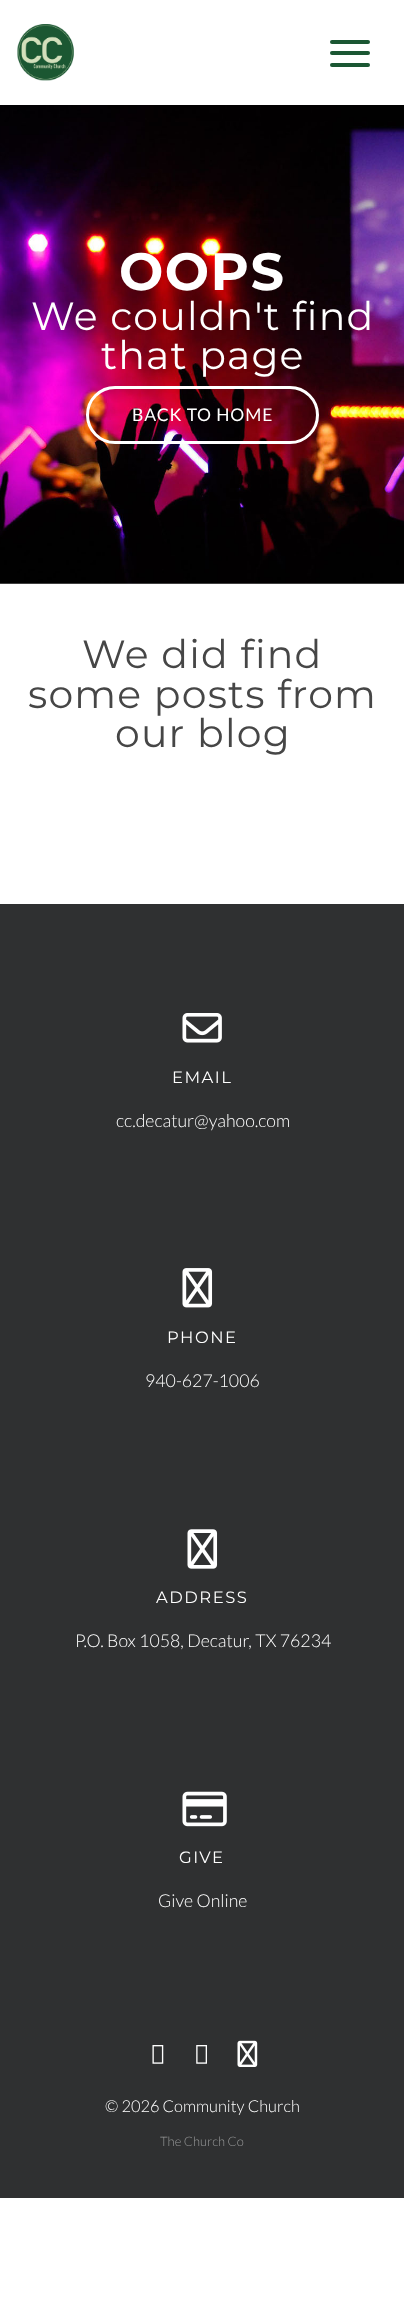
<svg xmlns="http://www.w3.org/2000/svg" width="404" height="2311">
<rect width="100%" height="100%" fill="#fff"/>
<image x="17" y="24" width="57" height="57" href="media/1.png"/>
<rect x="330" y="40" width="40" height="4" rx="2" fill="#1b5733"/>
<rect x="330" y="51" width="40" height="4" rx="2" fill="#1b5733"/>
<rect x="330" y="63" width="40" height="4" rx="2" fill="#1b5733"/>
<image x="0" y="105" width="404" height="479" href="media/2.png"/>
<text x="119" y="290" style="font-family:Montserrat;font-size:52.5px;font-weight:bold;letter-spacing:1.5px;fill:#fff">OOPS</text>
<text x="31" y="330" style="font-family:Montserrat;font-size:39.4px;letter-spacing:1.2px;fill:#fff">We couldn't find</text>
<text x="101" y="369" style="font-family:Montserrat;font-size:39.4px;letter-spacing:1.2px;fill:#fff">that page</text>
<rect x="87.5" y="387.5" width="230" height="55" rx="27.5" fill="none" stroke="#fff" stroke-width="3"/>
<text x="132" y="421" style="font-family:Lato;font-size:17.5px;letter-spacing:0.9px;fill:#fff">BACK TO HOME</text>
<text x="82" y="668" style="font-family:Montserrat;font-size:39.4px;letter-spacing:1.2px;fill:#464646">We did find</text>
<text x="28" y="708" style="font-family:Montserrat;font-size:39.4px;letter-spacing:1.2px;fill:#464646">some posts from</text>
<text x="115" y="747" style="font-family:Montserrat;font-size:39.4px;letter-spacing:1.2px;fill:#464646">our blog</text>
<rect y="904" width="404" height="1294" fill="#2f3031"/>
<image x="182" y="1013" width="40" height="30" href="media/3.png"/>
<text x="172" y="1083" style="font-family:Montserrat;font-size:16.4px;letter-spacing:1.5px;fill:#fff">EMAIL</text>
<text x="116" y="1127" style="font-family:Lato;font-size:17.75px;font-weight:300;fill:#fff">cc.decatur@yahoo.com</text>
<image x="182" y="1268" width="31" height="40" href="media/4.png"/>
<text x="167" y="1343" style="font-family:Montserrat;font-size:16.4px;letter-spacing:1.5px;fill:#fff">PHONE</text>
<text x="145" y="1387" style="font-family:Lato;font-size:17.75px;font-weight:300;fill:#fff">940-627-1006</text>
<image x="187" y="1529" width="31" height="40" href="media/5.png"/>
<text x="156" y="1603" style="font-family:Montserrat;font-size:16.4px;letter-spacing:1.5px;fill:#fff">ADDRESS</text>
<text x="75" y="1647" style="font-family:Lato;font-size:17.75px;font-weight:300;fill:#fff">P.O. Box 1058, Decatur, TX 76234</text>
<image x="182" y="1791" width="45" height="36" href="media/6.png"/>
<text x="179" y="1863" style="font-family:Montserrat;font-size:16.4px;letter-spacing:1.5px;fill:#fff">GIVE</text>
<text x="158" y="1907" style="font-family:Lato;font-size:17.75px;font-weight:300;fill:#fff">Give Online</text>
<image x="152" y="2045" width="12" height="19" href="media/7.png"/>
<image x="196" y="2045" width="11" height="19" href="media/8.png"/>
<image x="237" y="2040" width="21" height="27" href="media/9.png"/>
<text x="105" y="2112" style="font-family:Lato;font-size:16.4px;font-weight:300;fill:#fff">© 2026 Community Church</text>
<text x="160" y="2146" style="font-family:Lato;font-size:13px;font-weight:300;fill:#979898">The Church Co</text>
</svg>
